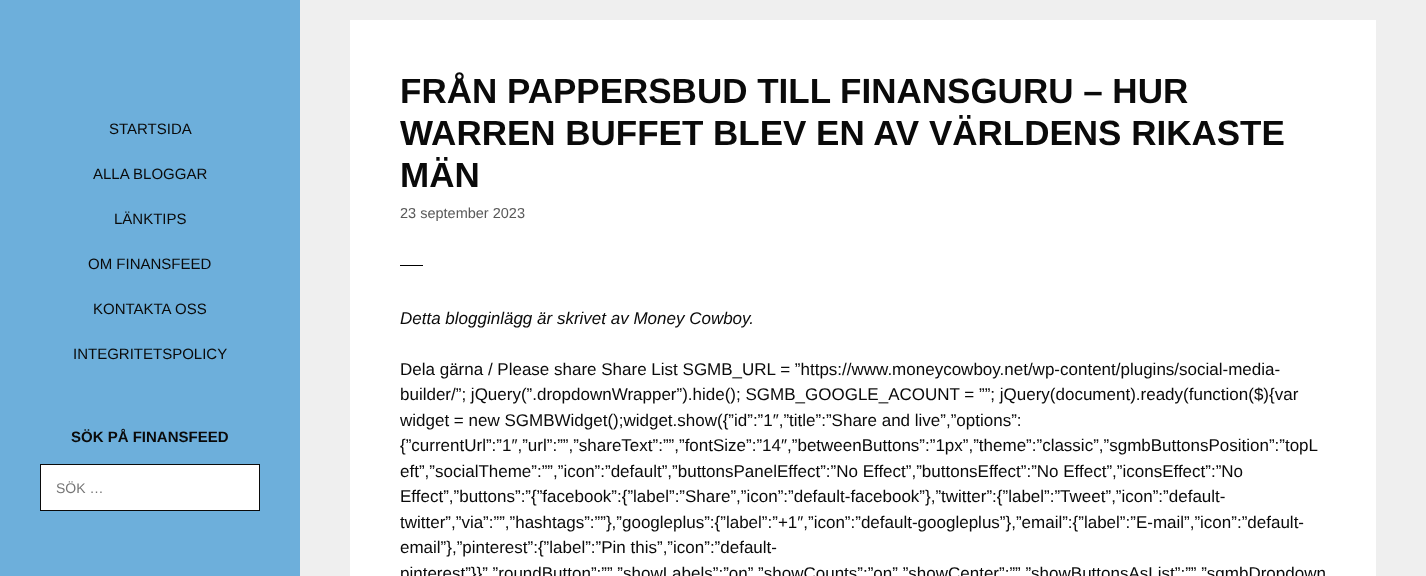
<svg xmlns="http://www.w3.org/2000/svg" width="1426" height="576">
<rect width="100%" height="100%" fill="#efefef"/>
<rect width="300" height="576" fill="#6dafdb"/>
<text x="109" y="134" style="font-family:Arimo;font-size:15px;fill:#0a0a0a">STARTSIDA</text>
<text x="93" y="179" style="font-family:Arimo;font-size:15px;fill:#0a0a0a">ALLA BLOGGAR</text>
<text x="114" y="224" style="font-family:Arimo;font-size:15px;fill:#0a0a0a">LÄNKTIPS</text>
<text x="88" y="269" style="font-family:Arimo;font-size:15px;fill:#0a0a0a">OM FINANSFEED</text>
<text x="93" y="314" style="font-family:Arimo;font-size:15px;fill:#0a0a0a">KONTAKTA OSS</text>
<text x="73" y="359" style="font-family:Arimo;font-size:15px;fill:#0a0a0a">INTEGRITETSPOLICY</text>
<text x="71" y="442" style="font-family:Arimo;font-size:15px;font-weight:bold;fill:#0a0a0a">SÖK PÅ FINANSFEED</text>
<rect x="40.5" y="464.5" width="219" height="46" fill="#fff" stroke="#0a0a0a"/>
<text x="56" y="493" style="font-family:Arimo;font-size:14px;fill:#757575">SÖK …</text>
<rect x="350" y="20" width="1026" height="556" fill="#fff"/>
<text x="400" y="103" style="font-family:Arimo;font-size:35px;font-weight:bold;fill:#0a0a0a">FRÅN PAPPERSBUD TILL FINANSGURU – HUR</text>
<text x="400" y="145" style="font-family:Arimo;font-size:35px;font-weight:bold;fill:#0a0a0a">WARREN BUFFET BLEV EN AV VÄRLDENS RIKASTE</text>
<text x="400" y="187" style="font-family:Arimo;font-size:35px;font-weight:bold;fill:#0a0a0a">MÄN</text>
<text x="400" y="218" style="font-family:Arimo;font-size:14.5px;fill:#595959">23 september 2023</text>
<rect x="400" y="265" width="23" height="1" fill="#000"/>
<text x="400" y="324" style="font-family:Arimo;font-size:17px;font-style:italic;fill:#0a0a0a">Detta blogginlägg är skrivet av Money Cowboy.</text>
<text x="400" y="375" style="font-family:Arimo;font-size:17px;fill:#0a0a0a">Dela gärna / Please share Share List SGMB_URL = ”https://www.moneycowboy.net/wp-content/plugins/social-media-</text>
<text x="400" y="400" style="font-family:Arimo;font-size:17px;fill:#0a0a0a">builder/”; jQuery(”.dropdownWrapper”).hide(); SGMB_GOOGLE_ACOUNT = ””; jQuery(document).ready(function($){var</text>
<text x="400" y="426" style="font-family:Arimo;font-size:17px;fill:#0a0a0a">widget = new SGMBWidget();widget.show({”id”:”1″,”title”:”Share and live”,”options”:</text>
<text x="400" y="451" style="font-family:Arimo;font-size:17px;fill:#0a0a0a">{”currentUrl”:”1″,”url”:””,”shareText”:””,”fontSize”:”14″,”betweenButtons”:”1px”,”theme”:”classic”,”sgmbButtonsPosition”:”topL</text>
<text x="400" y="477" style="font-family:Arimo;font-size:17px;fill:#0a0a0a">eft”,”socialTheme”:””,”icon”:”default”,”buttonsPanelEffect”:”No Effect”,”buttonsEffect”:”No Effect”,”iconsEffect”:”No</text>
<text x="400" y="502" style="font-family:Arimo;font-size:17px;fill:#0a0a0a">Effect”,”buttons”:”{”facebook”:{”label”:”Share”,”icon”:”default-facebook”},”twitter”:{”label”:”Tweet”,”icon”:”default-</text>
<text x="400" y="528" style="font-family:Arimo;font-size:17px;fill:#0a0a0a">twitter”,”via”:””,”hashtags”:””},”googleplus”:{”label”:”+1″,”icon”:”default-googleplus”},”email”:{”label”:”E-mail”,”icon”:”default-</text>
<text x="400" y="553" style="font-family:Arimo;font-size:17px;fill:#0a0a0a">email”},”pinterest”:{”label”:”Pin this”,”icon”:”default-</text>
<text x="400" y="579" style="font-family:Arimo;font-size:17px;fill:#0a0a0a">pinterest”}}”,”roundButton”:””,”showLabels”:”on”,”showCounts”:”on”,”showCenter”:””,”showButtonsAsList”:””,”sgmbDropdown</text>
</svg>
